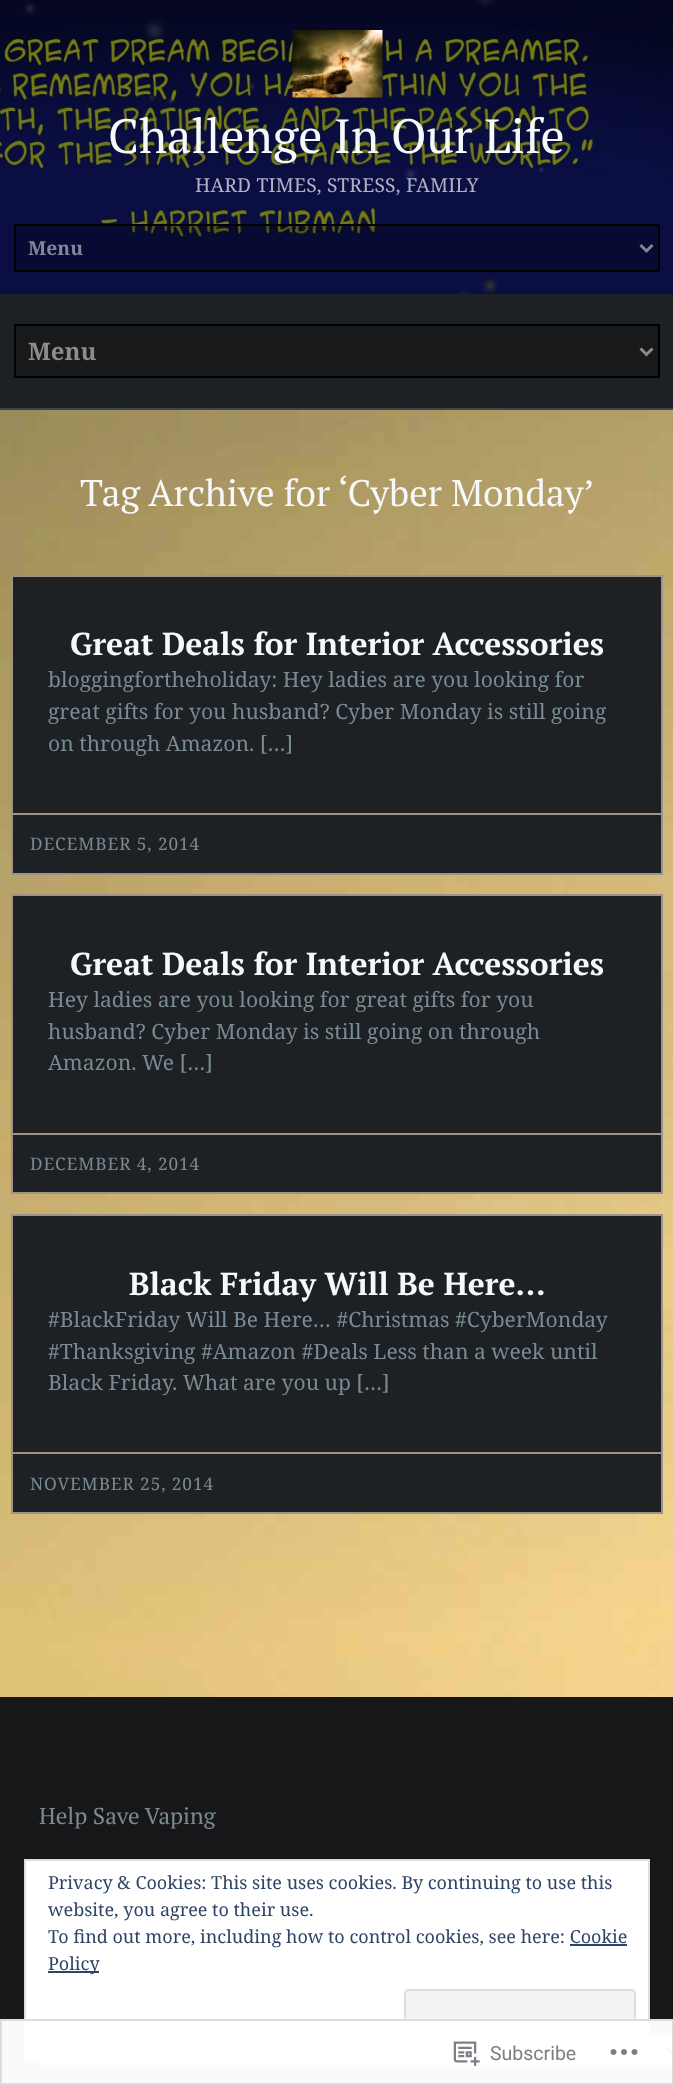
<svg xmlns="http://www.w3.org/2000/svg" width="673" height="2085">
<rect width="100%" height="100%" fill="#fff"/>
<image x="0" y="410" width="673" height="1287" href="media/1.png"/>
<image x="0" y="0" width="673" height="294" href="media/2.png"/>
<image x="292" y="30" width="91" height="68" href="media/3.png"/>
<text x="108" y="153" style="font-family:PT Serif;font-size:48px;fill:#f6f8fa">Challenge In Our Life</text>
<text x="195" y="192" style="font-family:Noto Serif;font-size:19.25px;letter-spacing:0.2px;fill:#afb2c3">HARD TIMES, STRESS, FAMILY</text>
<rect x="15" y="225" width="644" height="46" fill="#00000040" stroke="#000" stroke-width="2"/>
<path d="M640.5 245l6 6l6-6" fill="none" stroke="#838599" stroke-width="3"/>
<text x="28" y="255" style="font-family:Noto Serif;font-size:19.25px;font-weight:bold;fill:#838599">Menu</text>
<rect y="294" width="673" height="114" fill="#1e2123"/>
<rect y="408" width="673" height="2" fill="#3e454e"/>
<rect x="15" y="325" width="644" height="52" fill="#17191a" stroke="#000" stroke-width="2"/>
<path d="M640.5 348.5l6 6l6-6" fill="none" stroke="#8b8c8d" stroke-width="3"/>
<text x="28" y="360" style="font-family:Noto Serif;font-size:24px;font-weight:bold;fill:#8b8c8d">Menu</text>
<text x="80" y="506" style="font-family:PT Serif;font-size:37px;fill:#f6f8fa">Tag Archive for ‘Cyber Monday’</text>
<rect x="12" y="576" width="650" height="298" fill="#1e2123" stroke="#9f9289" stroke-width="2"/>
<text x="70" y="655" style="font-family:PT Serif;font-size:31.7px;font-weight:bold;fill:#f6f8fa">Great Deals for Interior Accessories</text>
<text x="48" y="687" style="font-family:Noto Serif;font-size:21.1px;fill:#798a95">bloggingfortheholiday: Hey ladies are you looking for</text>
<text x="48" y="719" style="font-family:Noto Serif;font-size:21.1px;fill:#798a95">great gifts for you husband? Cyber Monday is still going</text>
<text x="48" y="751" style="font-family:Noto Serif;font-size:21.1px;fill:#798a95">on through Amazon. […]</text>
<rect x="12" y="813" width="650" height="2" fill="#9f9289"/>
<text x="30" y="850" style="font-family:Noto Serif;font-size:17.25px;letter-spacing:0.9px;fill:#798a95">DECEMBER 5, 2014</text>
<rect x="12" y="895" width="650" height="298" fill="#1e2123" stroke="#9f9289" stroke-width="2"/>
<text x="70" y="975" style="font-family:PT Serif;font-size:31.7px;font-weight:bold;fill:#f6f8fa">Great Deals for Interior Accessories</text>
<text x="48" y="1007" style="font-family:Noto Serif;font-size:21.1px;fill:#798a95">Hey ladies are you looking for great gifts for you</text>
<text x="48" y="1039" style="font-family:Noto Serif;font-size:21.1px;fill:#798a95">husband? Cyber Monday is still going on through</text>
<text x="48" y="1070" style="font-family:Noto Serif;font-size:21.1px;fill:#798a95">Amazon. We […]</text>
<rect x="12" y="1133" width="650" height="2" fill="#9f9289"/>
<text x="30" y="1170" style="font-family:Noto Serif;font-size:17.25px;letter-spacing:0.9px;fill:#798a95">DECEMBER 4, 2014</text>
<rect x="12" y="1215" width="650" height="298" fill="#1e2123" stroke="#9f9289" stroke-width="2"/>
<text x="129" y="1295" style="font-family:PT Serif;font-size:31.7px;font-weight:bold;fill:#f6f8fa">Black Friday Will Be Here…</text>
<text x="48" y="1327" style="font-family:Noto Serif;font-size:21.1px;fill:#798a95">#BlackFriday Will Be Here… #Christmas #CyberMonday</text>
<text x="48" y="1359" style="font-family:Noto Serif;font-size:21.1px;fill:#798a95">#Thanksgiving #Amazon #Deals Less than a week until</text>
<text x="48" y="1390" style="font-family:Noto Serif;font-size:21.1px;fill:#798a95">Black Friday. What are you up […]</text>
<rect x="12" y="1452" width="650" height="2" fill="#9f9289"/>
<text x="30" y="1490" style="font-family:Noto Serif;font-size:17.25px;letter-spacing:0.9px;fill:#798a95">NOVEMBER 25, 2014</text>
<rect y="1697" width="673" height="388" fill="#171719"/>
<text x="39" y="1824" style="font-family:PT Serif;font-size:23px;fill:#798a95">Help Save Vaping</text>
<path d="M42 2034h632v33h-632c-1.5 0-3-1.5-3-3v-27c0-1.5 1.5-3 3-3z" fill="#fff"/>
<rect x="40" y="2035" width="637" height="31" rx="2" fill="none" stroke="#767676" stroke-width="2"/>
<path d="M666 2047.5l6 6l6-6" fill="none" stroke="#000" stroke-width="3"/>
<rect x="25" y="1860" width="624" height="200" fill="#fff" stroke="#dedede" stroke-width="2"/>
<text x="48" y="1889" style="font-family:Noto Serif;font-size:18px;fill:#2e4467">Privacy &amp; Cookies: This site uses cookies. By continuing to use this</text>
<text x="48" y="1916" style="font-family:Noto Serif;font-size:18px;fill:#2e4467">website, you agree to their use.</text>
<text x="48" y="1943" style="font-family:Noto Serif;font-size:18px;fill:#2e4467">To find out more, including how to control cookies, see here: Cookie</text>
<rect x="48" y="1971" width="51" height="2" fill="#2e4467"/>
<text x="48" y="1970" style="font-family:Noto Serif;font-size:18px;fill:#2e4467">Policy</text>
<rect x="570" y="1944" width="57" height="2" fill="#2e4467"/>
<rect x="405" y="1990" width="230" height="57" rx="4" fill="#f3f3f3" stroke="#dedede" stroke-width="2"/>
<rect y="2019" width="673" height="66" fill="#fffffffa"/>
<rect x="1" y="2020" width="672" height="64" fill="none" stroke="#dcdcdefa" stroke-width="2"/>
<image x="453" y="2041" width="27" height="25" href="media/4.png"/>
<text x="490" y="2060" style="font-family:Roboto;font-size:19.5px;fill:#7b7f84">Subscribe</text>
<image x="610" y="2049" width="28" height="6" href="media/5.png"/>
</svg>
